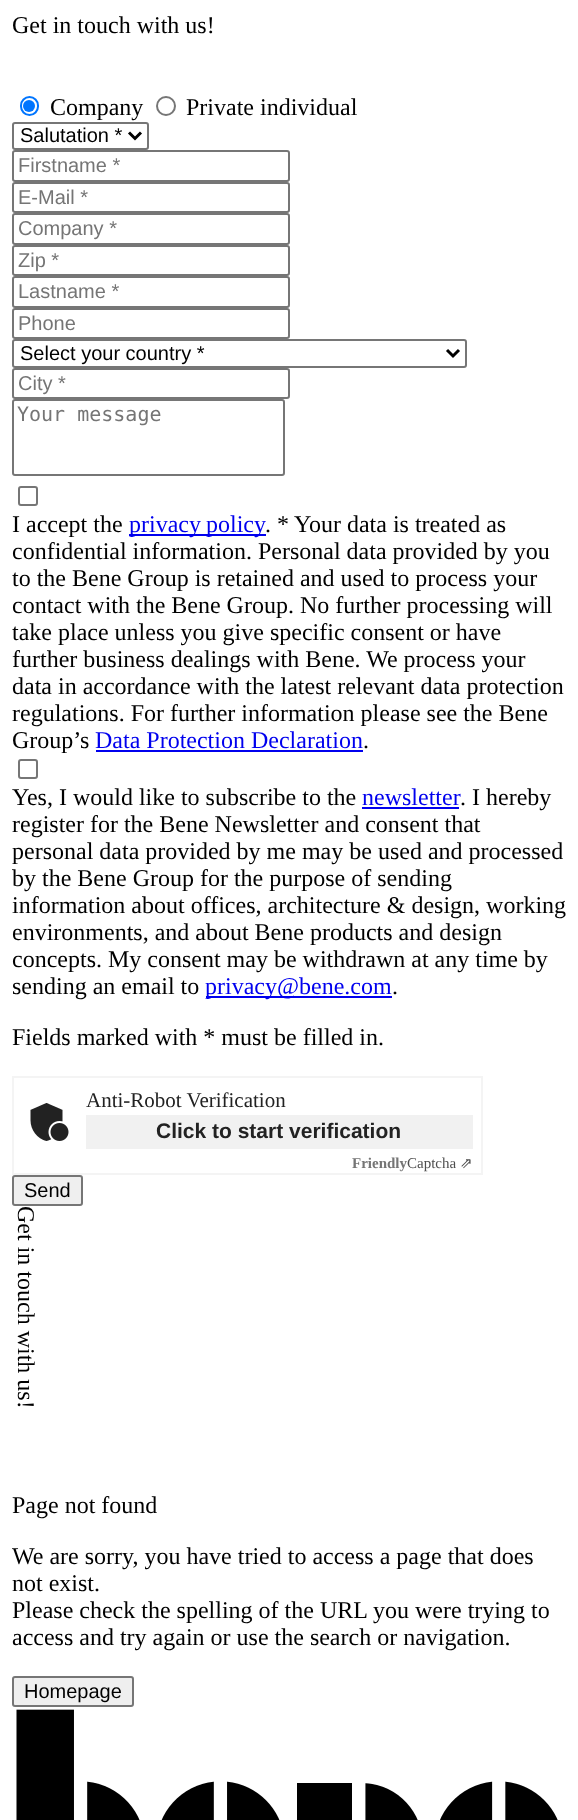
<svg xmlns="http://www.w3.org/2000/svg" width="578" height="1820">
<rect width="100%" height="100%" fill="#fff"/>
<text x="12" y="33" style="font-family:Liberation Serif;font-size:24px;fill:#000">Get in touch with us!</text>
<rect x="21" y="97" width="17" height="18" rx="8.5" fill="none" stroke="#0075ff" stroke-width="2"/>
<circle cx="29" cy="106" r="6" fill="#0075ff"/>
<text x="50" y="115" style="font-family:Liberation Serif;font-size:24px;fill:#000">Company</text>
<circle cx="166" cy="106" r="9" fill="none" stroke="#767676" stroke-width="2"/>
<text x="186" y="115" style="font-family:Liberation Serif;font-size:24px;fill:#000">Private individual</text>
<rect x="13" y="123" width="135" height="26" rx="2" fill="none" stroke="#767676" stroke-width="2"/>
<path d="M129 132.5l6 6l6-6" fill="none" stroke="#000" stroke-width="3"/>
<text x="20" y="142" style="font-family:Liberation Sans;font-size:20px;fill:#000">Salutation *</text>
<rect x="13" y="151" width="276" height="30" rx="2" fill="none" stroke="#767676" stroke-width="2"/>
<text x="18" y="172" style="font-family:Liberation Sans;font-size:20px;fill:#757575">Firstname *</text>
<rect x="13" y="183" width="276" height="29" rx="2" fill="none" stroke="#767676" stroke-width="2"/>
<text x="18" y="204" style="font-family:Liberation Sans;font-size:20px;fill:#757575">E-Mail *</text>
<rect x="13" y="214" width="276" height="30" rx="2" fill="none" stroke="#767676" stroke-width="2"/>
<text x="18" y="235" style="font-family:Liberation Sans;font-size:20px;fill:#757575">Company *</text>
<rect x="13" y="246" width="276" height="29" rx="2" fill="none" stroke="#767676" stroke-width="2"/>
<text x="18" y="267" style="font-family:Liberation Sans;font-size:20px;fill:#757575">Zip *</text>
<rect x="13" y="277" width="276" height="30" rx="2" fill="none" stroke="#767676" stroke-width="2"/>
<text x="18" y="298" style="font-family:Liberation Sans;font-size:20px;fill:#757575">Lastname *</text>
<rect x="13" y="309" width="276" height="29" rx="2" fill="none" stroke="#767676" stroke-width="2"/>
<text x="18" y="330" style="font-family:Liberation Sans;font-size:20px;fill:#757575">Phone</text>
<rect x="13" y="340" width="453" height="27" rx="2" fill="none" stroke="#767676" stroke-width="2"/>
<path d="M447 350l6 6l6-6" fill="none" stroke="#000" stroke-width="3"/>
<text x="20" y="360" style="font-family:Liberation Sans;font-size:20px;fill:#000">Select your country *</text>
<rect x="13" y="369" width="276" height="29" rx="2" fill="none" stroke="#767676" stroke-width="2"/>
<text x="18" y="390" style="font-family:Liberation Sans;font-size:20px;fill:#757575">City *</text>
<rect x="13" y="400" width="271" height="75" rx="2" fill="none" stroke="#767676" stroke-width="2"/>
<text x="17" y="421" style="font-family:DejaVu Sans Mono;font-size:20px;fill:#757575">Your message</text>
<rect x="19" y="487" width="18" height="18" rx="2" fill="none" stroke="#767676" stroke-width="2"/>
<text x="12" y="532" style="font-family:Liberation Serif;font-size:24px;fill:#000">I accept the</text>
<rect x="129" y="534" width="137" height="2" fill="#00e"/>
<text x="129" y="532" word-spacing="-1" style="font-family:Liberation Serif;font-size:24px;fill:#00e">privacy policy</text>
<text x="265" y="532" style="font-family:Liberation Serif;font-size:24px;fill:#000">. *</text>
<text x="294" y="532" style="font-family:Liberation Serif;font-size:24px;fill:#000">Your data is treated as</text>
<text x="12" y="559" style="font-family:Liberation Serif;font-size:24px;fill:#000">confidential information. Personal data provided by you</text>
<text x="12" y="586" style="font-family:Liberation Serif;font-size:24px;fill:#000">to the Bene Group is retained and used to process your</text>
<text x="12" y="613" style="font-family:Liberation Serif;font-size:24px;fill:#000">contact with the Bene Group. No further processing will</text>
<text x="12" y="640" style="font-family:Liberation Serif;font-size:24px;fill:#000">take place unless you give specific consent or have</text>
<text x="12" y="667" style="font-family:Liberation Serif;font-size:24px;fill:#000">further business dealings with Bene. We process your</text>
<text x="12" y="694" style="font-family:Liberation Serif;font-size:24px;fill:#000">data in accordance with the latest relevant data protection</text>
<text x="12" y="721" style="font-family:Liberation Serif;font-size:24px;fill:#000">regulations. For further information please see the Bene</text>
<text x="12" y="748" style="font-family:Liberation Serif;font-size:24px;fill:#000">Group’s</text>
<text x="95" y="748" style="font-family:Liberation Serif;font-size:24px;fill:#00e">Data Protection Declaration</text>
<text x="363" y="748" style="font-family:Liberation Serif;font-size:24px;fill:#000">.</text>
<rect x="96" y="750" width="267" height="2" fill="#00e"/>
<rect x="19" y="760" width="18" height="18" rx="2" fill="none" stroke="#767676" stroke-width="2"/>
<text x="12" y="805" style="font-family:Liberation Serif;font-size:24px;fill:#000">Yes, I would like to subscribe to the</text>
<text x="362" y="805" style="font-family:Liberation Serif;font-size:24px;fill:#00e">newsletter</text>
<text x="460" y="805" style="font-family:Liberation Serif;font-size:24px;fill:#000">. I hereby</text>
<rect x="362" y="807" width="97" height="2" fill="#00e"/>
<text x="12" y="832" style="font-family:Liberation Serif;font-size:24px;fill:#000">register for the Bene Newsletter and consent that</text>
<text x="12" y="859" style="font-family:Liberation Serif;font-size:24px;fill:#000">personal data provided by me may be used and processed</text>
<text x="12" y="886" style="font-family:Liberation Serif;font-size:24px;fill:#000">by the Bene Group for the purpose of sending</text>
<text x="12" y="913" style="font-family:Liberation Serif;font-size:24px;fill:#000">information about offices, architecture &amp; design, working</text>
<text x="12" y="940" style="font-family:Liberation Serif;font-size:24px;fill:#000">environments, and about Bene products and design</text>
<text x="12" y="967" style="font-family:Liberation Serif;font-size:24px;fill:#000">concepts. My consent may be withdrawn at any time by</text>
<text x="12" y="994" style="font-family:Liberation Serif;font-size:24px;fill:#000">sending an email to</text>
<rect x="206" y="996" width="186" height="2" fill="#00e"/>
<text x="205" y="994" style="font-family:Liberation Serif;font-size:24px;fill:#00e">privacy@bene.com</text>
<text x="392" y="994" style="font-family:Liberation Serif;font-size:24px;fill:#000">.</text>
<text x="12" y="1045" style="font-family:Liberation Serif;font-size:24px;fill:#000">Fields marked with * must be filled in.</text>
<rect x="13" y="1077" width="469" height="97" fill="none" stroke="#f4f4f4" stroke-width="2"/>
<image x="30" y="1103" width="39" height="38" href="media/1.png"/>
<text x="86" y="1107" style="font-family:Liberation Serif;font-size:21px;fill:#222">Anti-Robot Verification</text>
<rect x="86" y="1115" width="387" height="34" fill="#f1f1f1"/>
<text x="156" y="1138" style="font-family:Liberation Sans;font-size:21px;font-weight:bold;fill:#222">Click to start verification</text>
<text x="352" y="1168" style="font-family:Liberation Serif;font-size:15px;font-weight:bold;fill:#757575">Friendly</text>
<text x="407" y="1168" style="font-family:Liberation Serif;font-size:15px;fill:#4e4e4e">Captcha</text>
<text x="460" y="1168" style="font-family:DejaVu Sans;font-size:15px;fill:#4e4e4e">⇗</text>
<rect x="13" y="1176" width="69" height="29" rx="2" fill="#efefef" stroke="#767676" stroke-width="2"/>
<text x="24" y="1197" style="font-family:Liberation Sans;font-size:20px;fill:#000">Send</text>
<text x="18" y="1206" transform="rotate(90 18 1206)" style="font-family:Liberation Serif;font-size:24px;fill:#000">Get in touch with us!</text>
<text x="12" y="1513" style="font-family:Liberation Serif;font-size:24px;fill:#000">Page not found</text>
<text x="12" y="1564" style="font-family:Liberation Serif;font-size:24px;fill:#000">We are sorry, you have tried to access a page that does</text>
<text x="12" y="1591" style="font-family:Liberation Serif;font-size:24px;fill:#000">not exist.</text>
<text x="12" y="1618" style="font-family:Liberation Serif;font-size:24px;fill:#000">Please check the spelling of the URL you were trying to</text>
<text x="12" y="1645" style="font-family:Liberation Serif;font-size:24px;fill:#000">access and try again or use the search or navigation.</text>
<rect x="13" y="1677" width="120" height="29" rx="2" fill="#efefef" stroke="#767676" stroke-width="2"/>
<text x="24" y="1698" style="font-family:Liberation Sans;font-size:20px;fill:#000">Homepage</text>
<image x="16" y="1709" width="542" height="111" href="media/2.png"/>
</svg>
